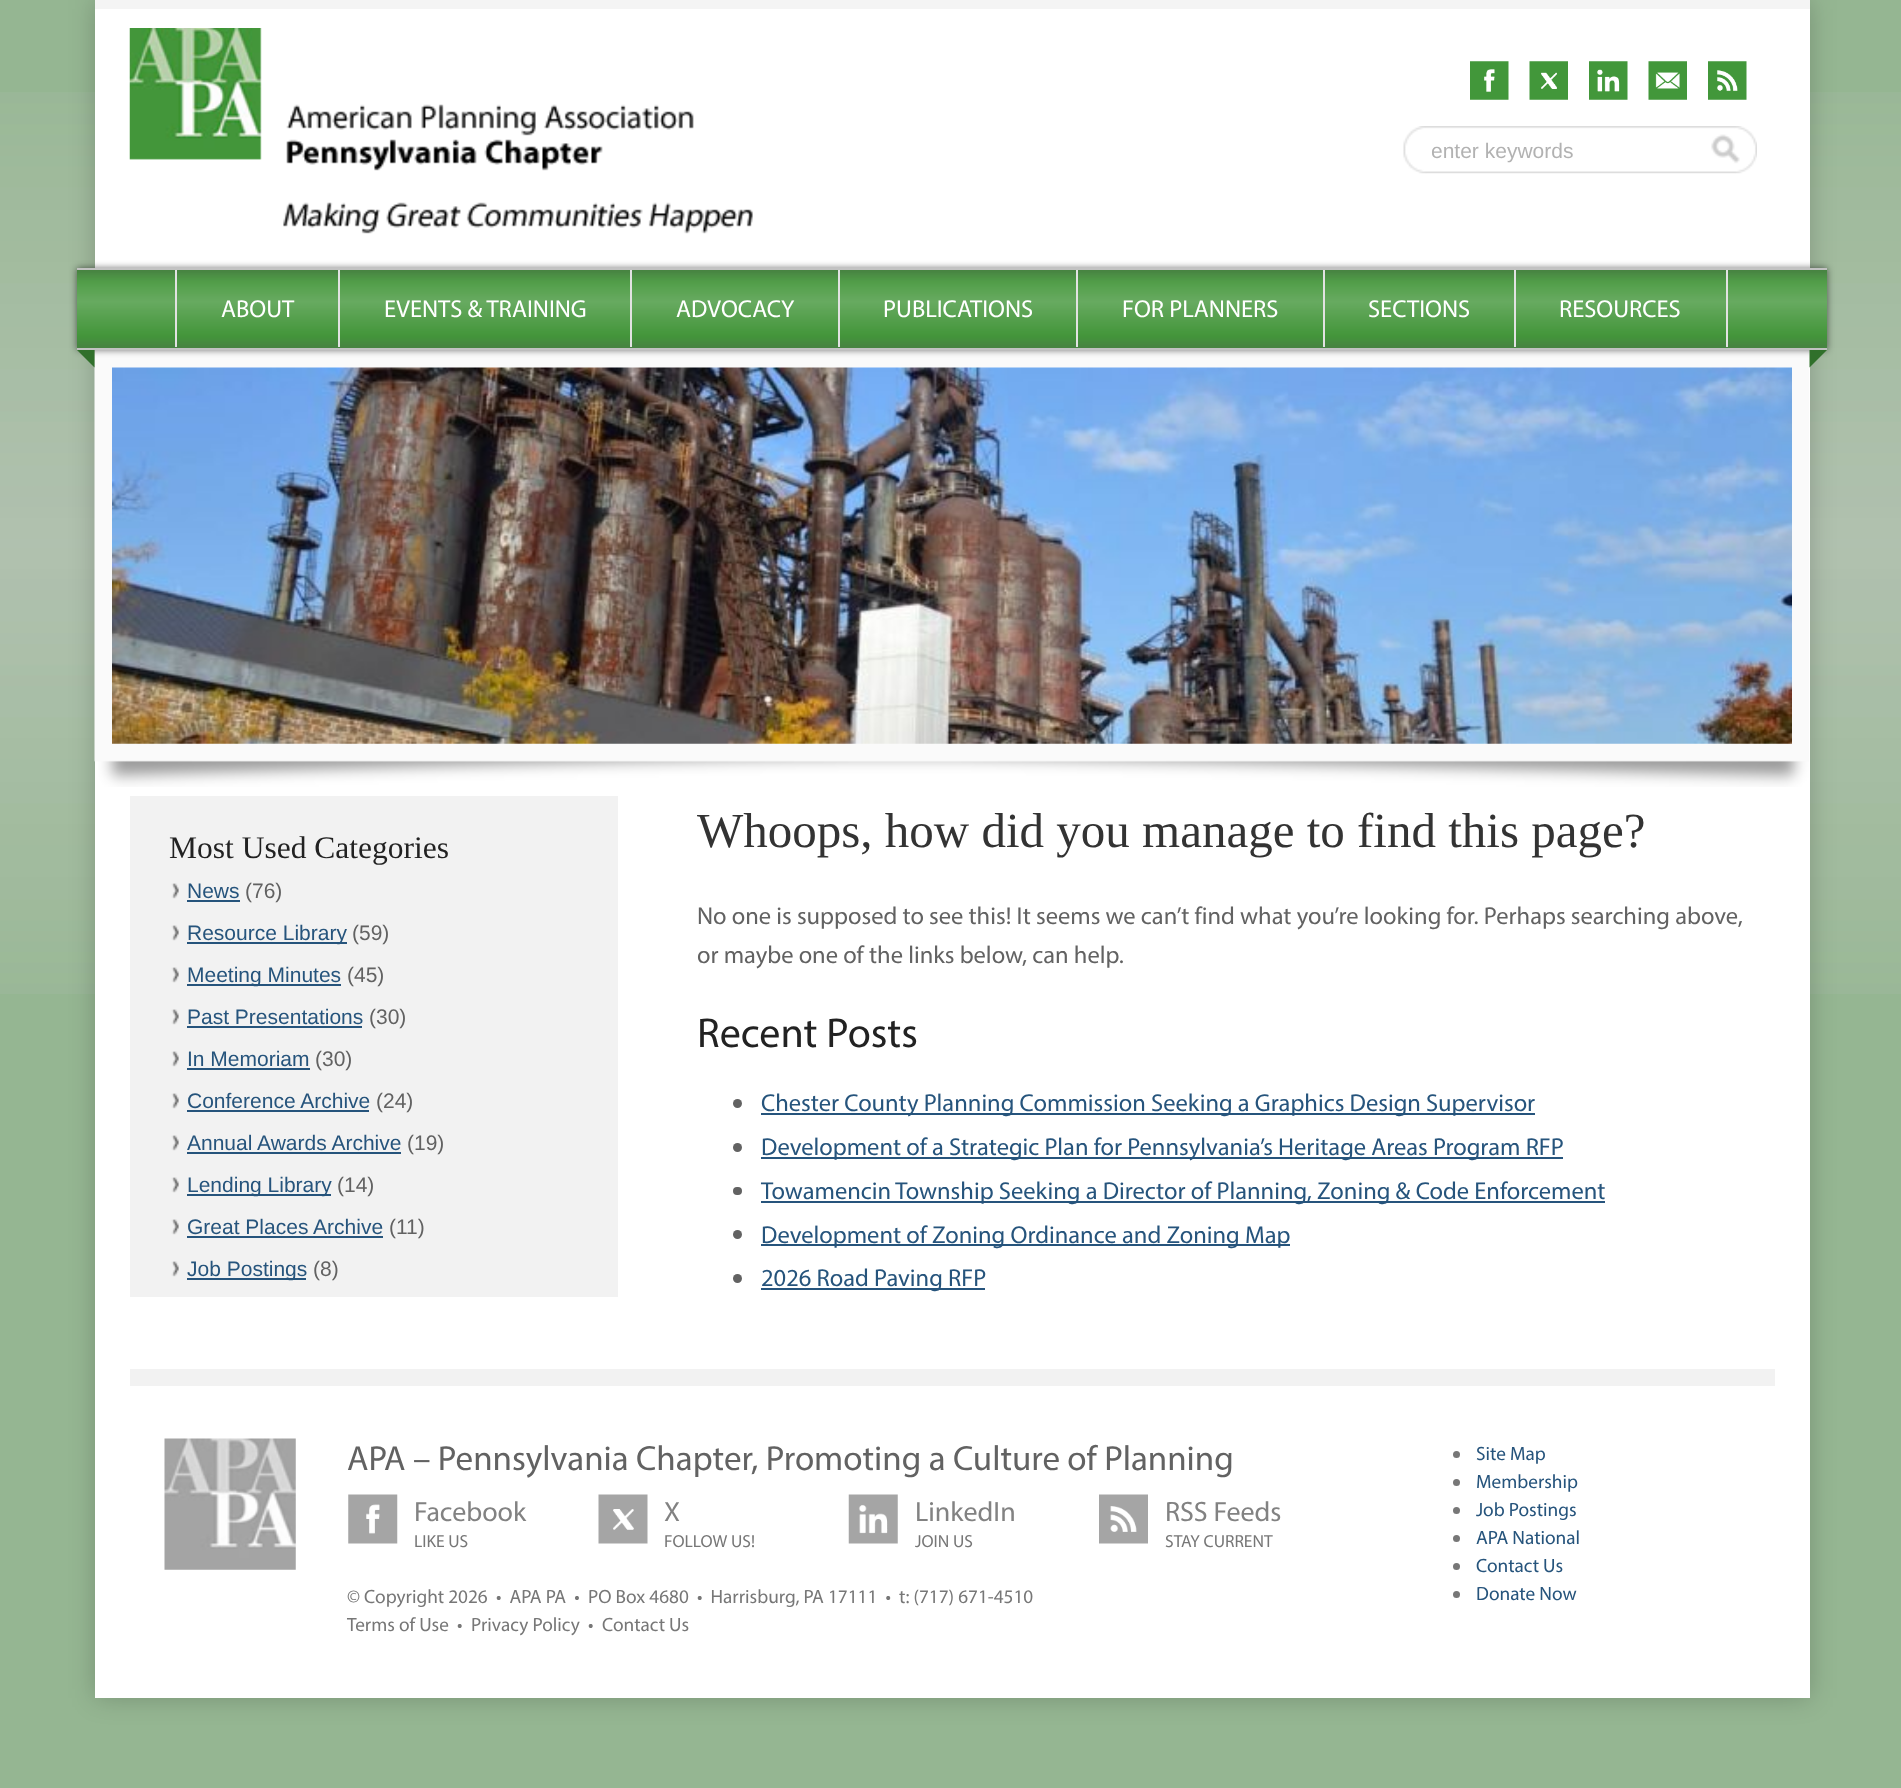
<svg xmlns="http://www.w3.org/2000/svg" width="1901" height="1788">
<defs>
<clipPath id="clip1"><rect x="1432" y="138" width="245" height="27"/></clipPath>
</defs>
<rect width="100%" height="100%" fill="#95b692"/>
<image x="0" y="92" width="1901" height="902" href="media/1.png"/>
<rect x="95" width="1715" height="1698" fill="#00000033" filter="blur(13px)"/>
<rect x="95" y="9" width="1715" height="1689" fill="#fff"/>
<rect x="95" width="1715" height="9" fill="#f4f4f4"/>
<image x="129" y="28" width="624" height="206" href="media/2.png"/>
<image x="1470" y="61" width="39" height="39" href="media/3.png"/>
<image x="1529" y="61" width="39" height="39" href="media/4.png"/>
<image x="1589" y="61" width="39" height="39" href="media/5.png"/>
<image x="1648" y="61" width="39" height="39" href="media/6.png"/>
<image x="1708" y="61" width="39" height="39" href="media/7.png"/>
<image x="1403" y="126" width="354" height="48" href="media/8.png"/>
<g clip-path="url(#clip1)">
<text x="1431" y="158" style="font-family:Liberation Sans;font-size:21px;fill:#b2b2b2">enter keywords</text>
</g>
<image x="94" y="350" width="1715" height="437" href="media/10.png"/>
<rect x="77" y="268" width="1750" height="82" fill="#0000008c" filter="blur(3.5px)"/>
<image x="77" y="270" width="1750" height="78" href="media/9.png"/>
<rect x="77" y="268" width="1750" height="2" fill="#c2c2c2"/>
<rect x="77" y="348" width="1750" height="2" fill="#c2c2c2"/>
<rect x="338" y="270" width="2" height="77" fill="#e2e2e2"/>
<rect x="175" y="270" width="2" height="77" fill="#e2e2e2"/>
<text x="221" y="317" style="font-family:Myriad;font-size:24.5px;fill:#fff">ABOUT</text>
<rect x="630" y="270" width="2" height="77" fill="#e2e2e2"/>
<text x="384" y="317" style="font-family:Myriad;font-size:24.5px;fill:#fff">EVENTS &amp; TRAINING</text>
<rect x="838" y="270" width="2" height="77" fill="#e2e2e2"/>
<text x="676" y="317" style="font-family:Myriad;font-size:24.5px;fill:#fff">ADVOCACY</text>
<rect x="1076" y="270" width="2" height="77" fill="#e2e2e2"/>
<text x="883" y="317" style="font-family:Myriad;font-size:24.5px;fill:#fff">PUBLICATIONS</text>
<rect x="1323" y="270" width="2" height="77" fill="#e2e2e2"/>
<text x="1122" y="317" style="font-family:Myriad;font-size:24.5px;fill:#fff">FOR PLANNERS</text>
<rect x="1514" y="270" width="2" height="77" fill="#e2e2e2"/>
<text x="1368" y="317" style="font-family:Myriad;font-size:24.5px;fill:#fff">SECTIONS</text>
<rect x="1726" y="270" width="2" height="77" fill="#e2e2e2"/>
<text x="1559" y="317" style="font-family:Myriad;font-size:24.5px;fill:#fff">RESOURCES</text>
<path d="M77 350h17.5v17.5z" fill="#30702b"/>
<path d="M1809.5 350h17.5l-17.5 17.5z" fill="#30702b"/>
<image x="112" y="367" width="1680" height="377" href="media/11.png"/>
<rect x="130" y="796" width="488" height="501" fill="#f2f2f2"/>
<text x="169" y="858" style="font-family:Liberation Serif;font-size:31.5px;fill:#222">Most Used Categories</text>
<image x="171" y="883" width="8" height="16" href="media/12.png"/>
<text x="187" y="898" style="font-family:Liberation Sans;font-size:21px;fill:#26547c">News</text>
<rect x="187" y="900" width="53" height="2" fill="#26547c"/>
<text x="245" y="898" style="font-family:Liberation Sans;font-size:21px;fill:#626262">(76)</text>
<image x="171" y="925" width="8" height="16" href="media/12.png"/>
<rect x="187" y="942" width="160" height="2" fill="#26547c"/>
<text x="187" y="940" style="font-family:Liberation Sans;font-size:21px;fill:#26547c">Resource Library</text>
<text x="352" y="940" style="font-family:Liberation Sans;font-size:21px;fill:#626262">(59)</text>
<image x="171" y="967" width="8" height="16" href="media/12.png"/>
<rect x="187" y="984" width="154" height="2" fill="#26547c"/>
<text x="187" y="982" style="font-family:Liberation Sans;font-size:21px;fill:#26547c">Meeting Minutes</text>
<text x="347" y="982" style="font-family:Liberation Sans;font-size:21px;fill:#626262">(45)</text>
<image x="171" y="1009" width="8" height="16" href="media/12.png"/>
<text x="187" y="1024" style="font-family:Liberation Sans;font-size:21px;fill:#26547c">Past Presentations</text>
<rect x="187" y="1026" width="175" height="2" fill="#26547c"/>
<text x="369" y="1024" style="font-family:Liberation Sans;font-size:21px;fill:#626262">(30)</text>
<image x="171" y="1051" width="8" height="16" href="media/12.png"/>
<text x="187" y="1066" style="font-family:Liberation Sans;font-size:21px;fill:#26547c">In Memoriam</text>
<rect x="187" y="1068" width="123" height="2" fill="#26547c"/>
<text x="315" y="1066" style="font-family:Liberation Sans;font-size:21px;fill:#626262">(30)</text>
<image x="171" y="1093" width="8" height="16" href="media/12.png"/>
<text x="187" y="1108" style="font-family:Liberation Sans;font-size:21px;fill:#26547c">Conference Archive</text>
<rect x="187" y="1110" width="182" height="2" fill="#26547c"/>
<text x="376" y="1108" style="font-family:Liberation Sans;font-size:21px;fill:#626262">(24)</text>
<image x="171" y="1135" width="8" height="16" href="media/12.png"/>
<text x="187" y="1150" style="font-family:Liberation Sans;font-size:21px;fill:#26547c">Annual Awards Archive</text>
<rect x="187" y="1152" width="214" height="2" fill="#26547c"/>
<text x="407" y="1150" style="font-family:Liberation Sans;font-size:21px;fill:#626262">(19)</text>
<image x="171" y="1177" width="8" height="16" href="media/12.png"/>
<rect x="187" y="1194" width="144" height="2" fill="#26547c"/>
<text x="187" y="1192" style="font-family:Liberation Sans;font-size:21px;fill:#26547c">Lending Library</text>
<text x="337" y="1192" style="font-family:Liberation Sans;font-size:21px;fill:#626262">(14)</text>
<image x="171" y="1219" width="8" height="16" href="media/12.png"/>
<text x="187" y="1234" style="font-family:Liberation Sans;font-size:21px;fill:#26547c">Great Places Archive</text>
<rect x="187" y="1236" width="196" height="2" fill="#26547c"/>
<text x="389" y="1234" style="font-family:Liberation Sans;font-size:21px;fill:#626262">(11)</text>
<image x="171" y="1261" width="8" height="16" href="media/12.png"/>
<rect x="187" y="1278" width="119" height="2" fill="#26547c"/>
<text x="187" y="1276" style="font-family:Liberation Sans;font-size:21px;fill:#26547c">Job Postings</text>
<text x="313" y="1276" style="font-family:Liberation Sans;font-size:21px;fill:#626262">(8)</text>
<text x="697" y="847" style="font-family:Liberation Serif;font-size:49px;fill:#333">Whoops, how did you manage to find this page?</text>
<text x="697" y="924" style="font-family:Myriad;font-size:24.5px;fill:#626262">No one is supposed to see this! It seems we can’t find what you’re looking for. Perhaps searching above,</text>
<text x="697" y="963" style="font-family:Myriad;font-size:24.5px;fill:#626262">or maybe one of the links below, can help.</text>
<text x="697" y="1047" style="font-family:Myriad;font-size:42px;fill:#222">Recent Posts</text>
<circle cx="737.5" cy="1103.5" r="4.5" fill="#626262"/>
<rect x="761" y="1113" width="774" height="2" fill="#26547c"/>
<text x="761" y="1111" style="font-family:Myriad;font-size:24.5px;fill:#26547c">Chester County Planning Commission Seeking a Graphics Design Supervisor</text>
<circle cx="737.5" cy="1147.5" r="4.5" fill="#626262"/>
<rect x="761" y="1157" width="802" height="2" fill="#26547c"/>
<text x="761" y="1155" style="font-family:Myriad;font-size:24.5px;fill:#26547c">Development of a Strategic Plan for Pennsylvania’s Heritage Areas Program RFP</text>
<rect x="733" y="1187" width="9" height="8" rx="4" fill="#626262"/>
<rect x="761" y="1201" width="844" height="2" fill="#26547c"/>
<text x="761" y="1199" style="font-family:Myriad;font-size:24.5px;fill:#26547c">Towamencin Township Seeking a Director of Planning, Zoning &amp; Code Enforcement</text>
<circle cx="737.5" cy="1234.5" r="4.5" fill="#626262"/>
<rect x="761" y="1244" width="529" height="2" fill="#26547c"/>
<text x="761" y="1243" style="font-family:Myriad;font-size:24.5px;fill:#26547c">Development of Zoning Ordinance and Zoning Map</text>
<circle cx="737.5" cy="1278.5" r="4.5" fill="#626262"/>
<rect x="761" y="1288" width="224" height="2" fill="#26547c"/>
<text x="761" y="1286" style="font-family:Myriad;font-size:24.5px;fill:#26547c">2026 Road Paving RFP</text>
<rect x="130" y="1369" width="1645" height="17" fill="#f2f2f2"/>
<image x="164" y="1438" width="132" height="132" href="media/13.png"/>
<text x="347" y="1470" style="font-family:Myriad;font-size:35px;fill:#626262">APA – Pennsylvania Chapter, Promoting a Culture of Planning</text>
<image x="348" y="1494" width="50" height="50" href="media/14.png"/>
<text x="414" y="1521" style="font-family:Myriad;font-size:28px;fill:#828282">Facebook</text>
<text x="414" y="1547" style="font-family:Myriad;font-size:17.5px;fill:#777">LIKE US</text>
<image x="598" y="1494" width="50" height="50" href="media/15.png"/>
<text x="664" y="1521" style="font-family:Myriad;font-size:28px;fill:#828282">X</text>
<text x="664" y="1547" style="font-family:Myriad;font-size:17.5px;fill:#777">FOLLOW US!</text>
<image x="848" y="1494" width="50" height="50" href="media/16.png"/>
<text x="915" y="1521" style="font-family:Myriad;font-size:28px;fill:#828282">LinkedIn</text>
<text x="915" y="1547" style="font-family:Myriad;font-size:17.5px;fill:#777">JOIN US</text>
<image x="1099" y="1494" width="49" height="50" href="media/17.png"/>
<text x="1165" y="1521" style="font-family:Myriad;font-size:28px;fill:#828282">RSS Feeds</text>
<text x="1165" y="1547" style="font-family:Myriad;font-size:17.5px;fill:#777">STAY CURRENT</text>
<text x="347" y="1603" style="font-family:Myriad;font-size:19.25px;fill:#777" xml:space="preserve">© Copyright 2026  •  APA PA  •  PO Box 4680  •  Harrisburg, PA 17111  •  t: (717) 671-4510</text>
<text x="347" y="1631" style="font-family:Myriad;font-size:19.25px;fill:#777">Terms of Use</text>
<text x="457" y="1631" style="font-family:Myriad;font-size:19.25px;fill:#777">•</text>
<text x="471" y="1631" style="font-family:Myriad;font-size:19.25px;fill:#777">Privacy Policy</text>
<text x="588" y="1631" style="font-family:Myriad;font-size:19.25px;fill:#777">•</text>
<text x="602" y="1631" style="font-family:Myriad;font-size:19.25px;fill:#777">Contact Us</text>
<circle cx="1456.5" cy="1454.5" r="3.5" fill="#777"/>
<text x="1476" y="1460" style="font-family:Myriad;font-size:19.25px;fill:#26547c">Site Map</text>
<circle cx="1456.5" cy="1482.5" r="3.5" fill="#777"/>
<text x="1476" y="1488" style="font-family:Myriad;font-size:19.25px;fill:#26547c">Membership</text>
<circle cx="1456.5" cy="1510.5" r="3.5" fill="#777"/>
<text x="1476" y="1516" style="font-family:Myriad;font-size:19.25px;fill:#26547c">Job Postings</text>
<circle cx="1456.5" cy="1538.5" r="3.5" fill="#777"/>
<text x="1476" y="1544" style="font-family:Myriad;font-size:19.25px;fill:#26547c">APA National</text>
<circle cx="1456.5" cy="1566.5" r="3.5" fill="#777"/>
<text x="1476" y="1572" style="font-family:Myriad;font-size:19.25px;fill:#26547c">Contact Us</text>
<circle cx="1456.5" cy="1594.5" r="3.5" fill="#777"/>
<text x="1476" y="1600" style="font-family:Myriad;font-size:19.25px;fill:#26547c">Donate Now</text>
</svg>
